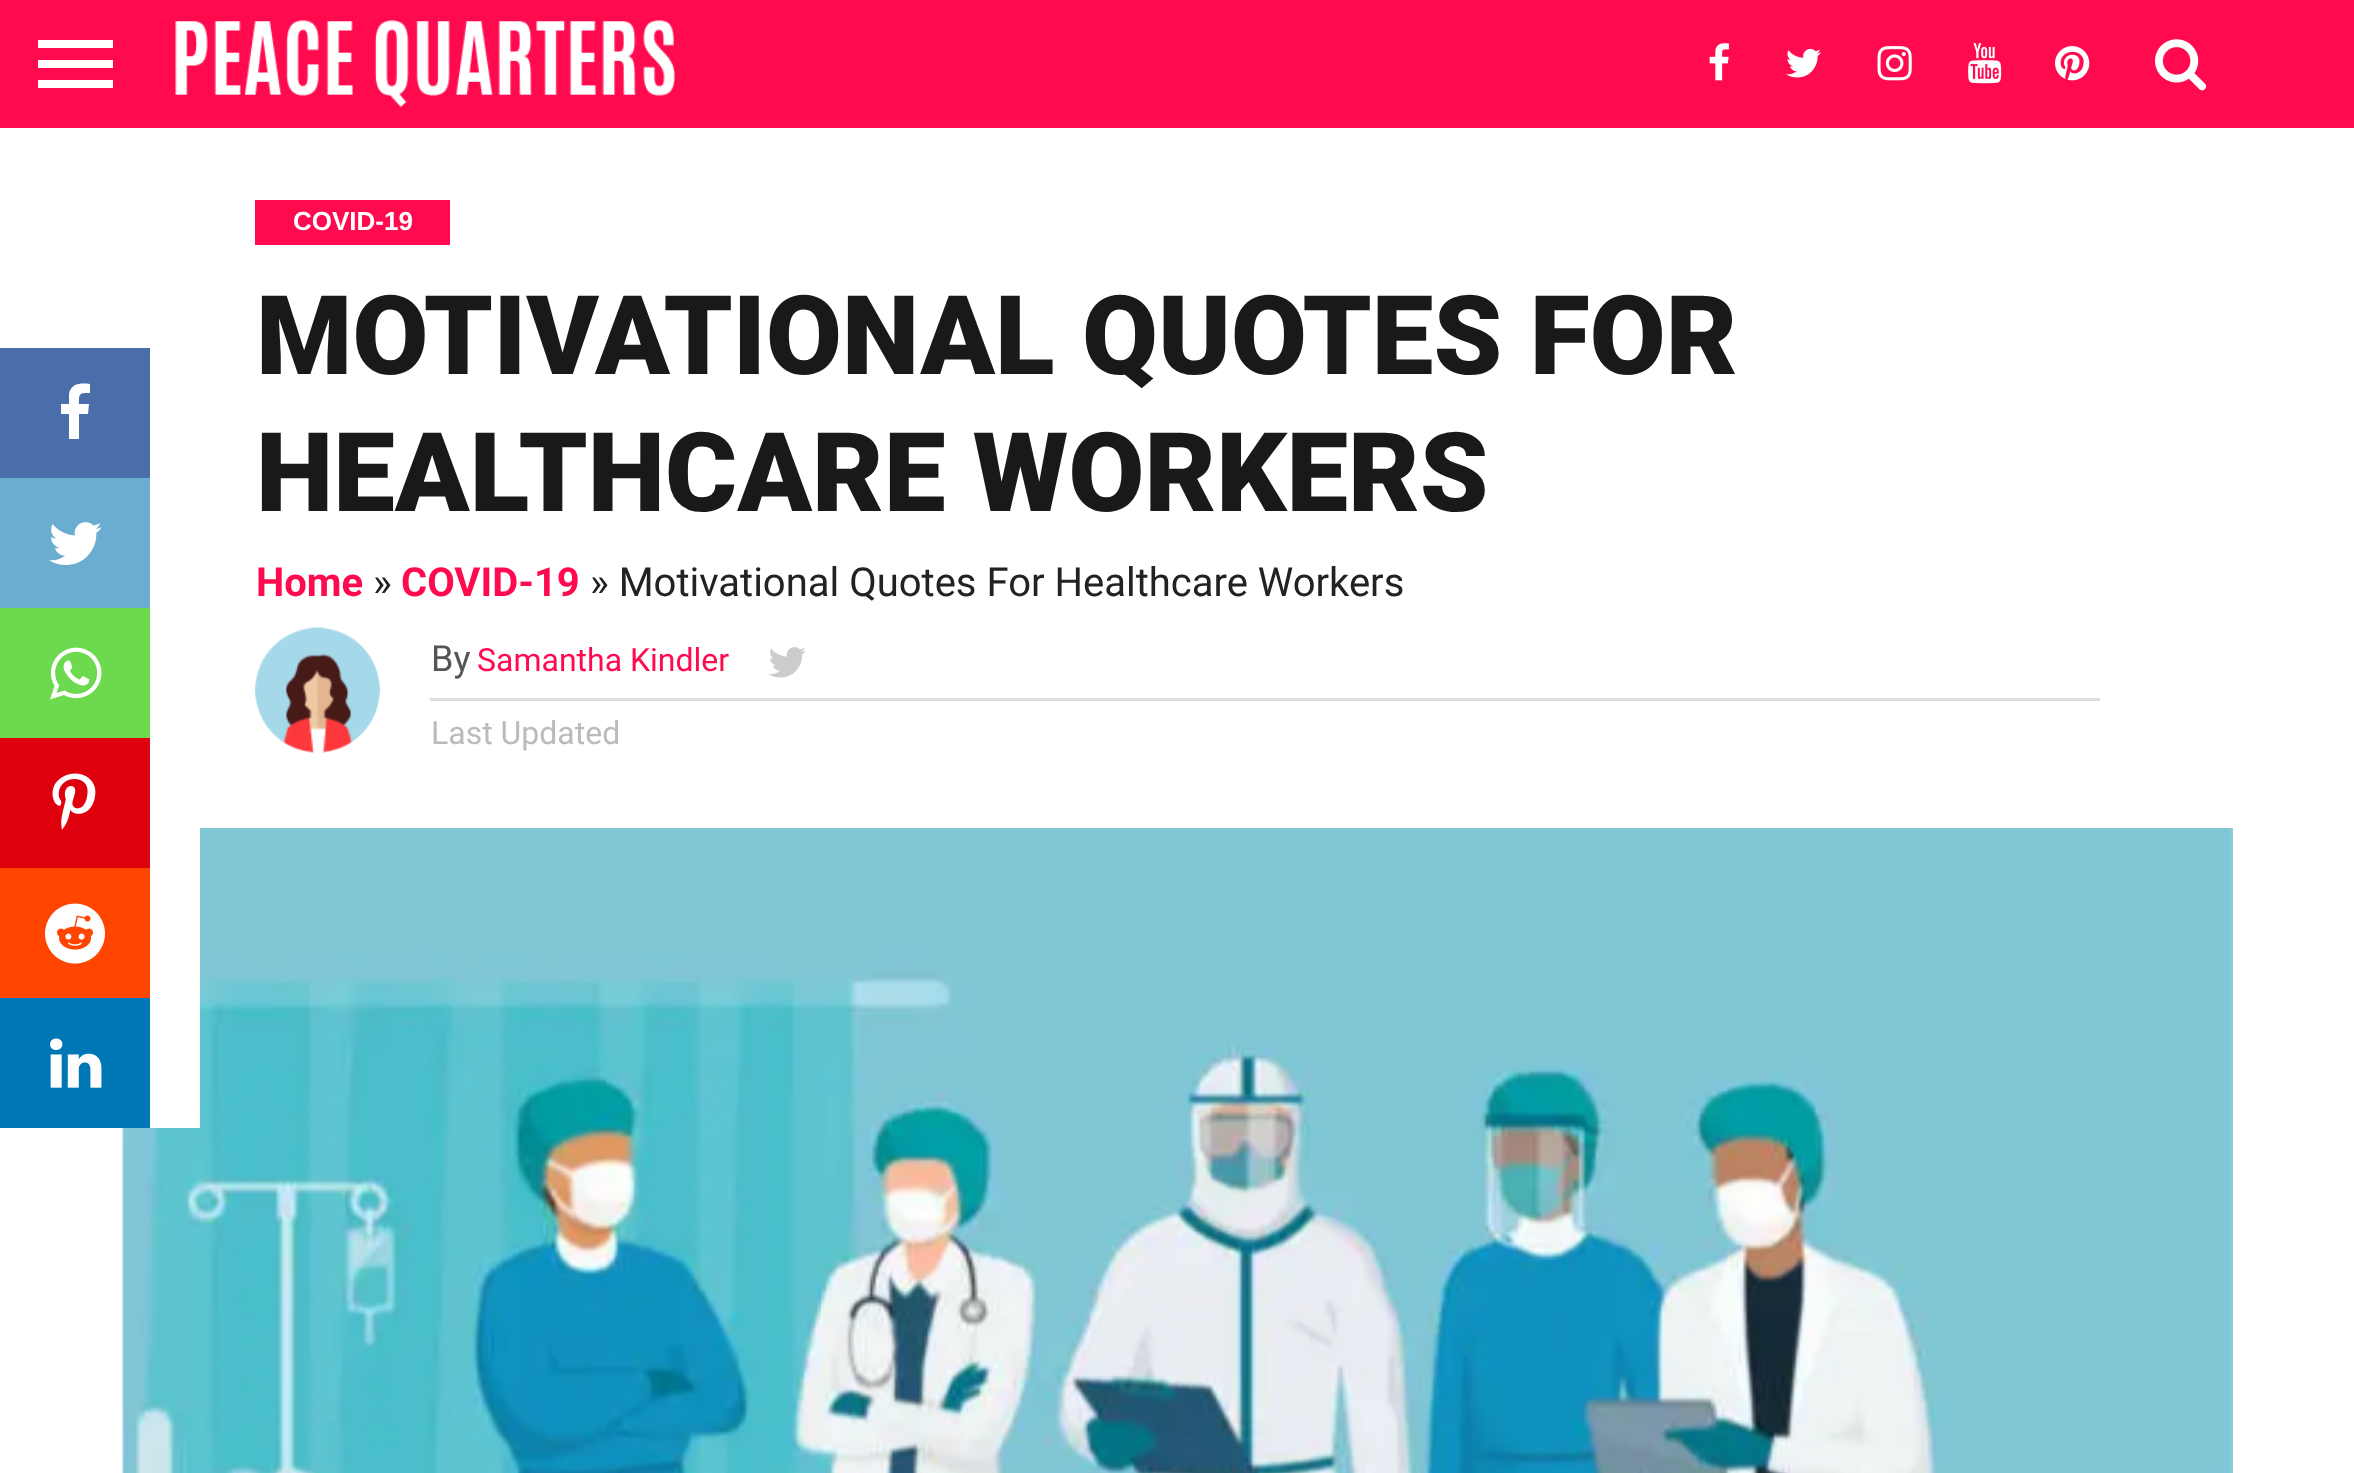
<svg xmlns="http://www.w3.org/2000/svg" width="2354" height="1473">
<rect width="100%" height="100%" fill="#fff"/>
<rect width="2354" height="128" fill="#ff0a4e"/>
<rect x="38" y="40" width="75" height="8" fill="#fff"/>
<rect x="38" y="60" width="75" height="8" fill="#fff"/>
<rect x="38" y="80" width="75" height="8" fill="#fff"/>
<image x="175" y="20" width="500" height="88" href="media/1.png"/>
<image x="1709" y="43" width="20" height="38" href="media/2.png"/>
<image x="1786" y="48" width="35" height="30" href="media/3.png"/>
<image x="1877" y="46" width="35" height="35" href="media/4.png"/>
<image x="1968" y="43" width="34" height="41" href="media/5.png"/>
<image x="2055" y="46" width="35" height="35" href="media/6.png"/>
<image x="2155" y="39" width="52" height="52" href="media/7.png"/>
<image x="122" y="828" width="2111" height="645" href="media/15.png"/>
<rect x="150" y="828" width="50" height="300" fill="#fff"/>
<rect y="348" width="150" height="130" fill="#4a6ea9"/>
<path d="M90 384v9c-11 0-11 0-11 11h10l-1 10h-9v25h-10v-25h-8v-10h8v-10c2-11 12-11 21-10z" fill="#fff"/>
<rect y="478" width="150" height="130" fill="#6aadd1"/>
<image x="49" y="522" width="53" height="43" href="media/8.png"/>
<rect y="608" width="150" height="130" fill="#6cd94e"/>
<image x="50" y="647" width="52" height="53" href="media/9.png"/>
<rect y="738" width="150" height="130" fill="#de010d"/>
<image x="52" y="773" width="44" height="57" href="media/10.png"/>
<rect y="868" width="150" height="130" fill="#ff4500"/>
<image x="45" y="903" width="60" height="61" href="media/11.png"/>
<rect y="998" width="150" height="130" fill="#0077b5"/>
<image x="50" y="1038" width="52" height="50" href="media/12.png"/>
<rect x="255" y="200" width="195" height="45" fill="#ff0a4e"/>
<text x="293" y="230" style="font-family:Liberation Sans;font-size:26px;font-weight:bold;fill:#fff">COVID-19</text>
<text x="256" y="374" style="font-family:Roboto;font-size:110px;font-weight:900;fill:#191919">MOTIVATIONAL QUOTES FOR</text>
<text x="256" y="511" style="font-family:Roboto;font-size:110px;font-weight:900;fill:#191919">HEALTHCARE WORKERS</text>
<text x="256" y="596" style="font-family:Roboto;font-size:40px;font-weight:bold;fill:#ff0a4e">Home</text>
<text x="373" y="596" style="font-family:Roboto;font-size:40px;fill:#222">»</text>
<text x="401" y="596" style="font-family:Roboto;font-size:40px;font-weight:bold;fill:#ff0a4e">COVID-19</text>
<text x="590" y="596" style="font-family:Roboto;font-size:40px;fill:#222">» Motivational Quotes For Healthcare Workers</text>
<image x="255" y="627" width="125" height="126" href="media/13.png"/>
<rect x="430" y="698" width="1670" height="3" fill="#ddd"/>
<text x="431" y="671" style="font-family:Roboto;font-size:36px;fill:#555">By</text>
<text x="477" y="671" style="font-family:Roboto;font-size:32px;fill:#ff0a4e">Samantha Kindler</text>
<image x="769" y="647" width="37" height="31" href="media/14.png"/>
<text x="431" y="744" style="font-family:Roboto;font-size:32px;fill:#bbb">Last Updated</text>
</svg>
